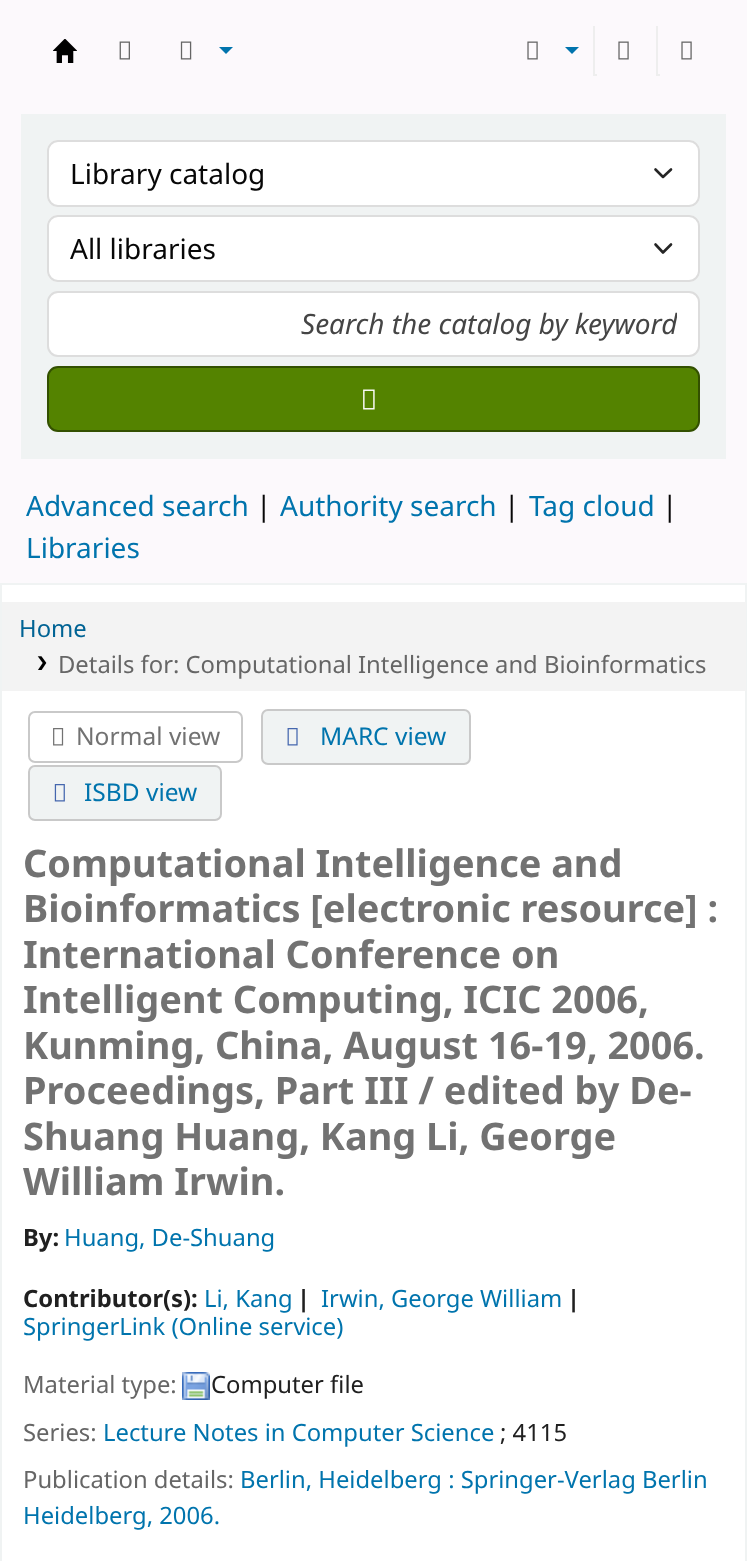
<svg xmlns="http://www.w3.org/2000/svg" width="747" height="1561">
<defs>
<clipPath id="clip1"><rect x="70" y="305" width="607" height="38"/></clipPath>
</defs>
<rect width="100%" height="100%" fill="#fcf9fc"/>
<image x="53" y="39" width="24" height="24" href="media/1.png"/>
<image x="119" y="41" width="11" height="19" href="media/2.png"/>
<image x="180" y="41" width="12" height="19" href="media/3.png"/>
<path d="M219 47h14l-7 7z" fill="#0074ad"/>
<image x="527" y="41" width="11" height="19" href="media/4.png"/>
<path d="M565 47h14l-7 7z" fill="#0074ad"/>
<rect x="593" y="74" width="4" height="2" fill="#eee"/>
<rect x="593" y="26" width="2" height="49" fill="#eee"/>
<image x="618" y="41" width="11" height="19" href="media/4.png"/>
<rect x="656" y="74" width="4" height="2" fill="#eee"/>
<rect x="656" y="26" width="2" height="49" fill="#eee"/>
<image x="681" y="41" width="11" height="19" href="media/4.png"/>
<rect x="21" y="114" width="705" height="345" fill="#f0f3f3"/>
<rect x="47" y="140" width="653" height="67" rx="11" fill="#fff"/>
<path d="M655.5 169.5l7.5 7.5l8-7.5" fill="none" stroke="#252525" stroke-width="2.6" stroke-linecap="round" stroke-linejoin="round"/>
<rect x="48" y="141" width="651" height="65" rx="10" fill="none" stroke="#ddd" stroke-width="2"/>
<text x="70" y="184" style="font-family:Noto Sans;font-size:28px;fill:#070707">Library catalog</text>
<rect x="47" y="215" width="653" height="67" rx="11" fill="#fff"/>
<path d="M655.5 244.5l7.5 8l8-8" fill="none" stroke="#252525" stroke-width="2.6" stroke-linecap="round" stroke-linejoin="round"/>
<rect x="48" y="216" width="651" height="65" rx="10" fill="none" stroke="#ddd" stroke-width="2"/>
<text x="70" y="259" style="font-family:Noto Sans;font-size:28px;fill:#070707">All libraries</text>
<rect x="48" y="292" width="651" height="64" rx="10" fill="#fff" stroke="#ddd" stroke-width="2"/>
<g clip-path="url(#clip1)">
<text x="301" y="334" style="font-family:Noto Sans;font-size:28px;font-style:italic;fill:#454545">Search the catalog by keyword</text>
</g>
<rect x="48" y="367" width="651" height="64" rx="10" fill="#548300" stroke="#335000" stroke-width="2"/>
<image x="363" y="389" width="12" height="21" href="media/5.png"/>
<text x="26" y="516" style="font-family:Noto Sans;font-size:28px;fill:#0074ad">Advanced search</text>
<text x="256" y="516" style="font-family:Noto Sans;font-size:28px;fill:#070707">|</text>
<text x="280" y="516" style="font-family:Noto Sans;font-size:28px;fill:#0074ad">Authority search</text>
<text x="504" y="516" style="font-family:Noto Sans;font-size:28px;fill:#070707">|</text>
<text x="529" y="516" style="font-family:Noto Sans;font-size:28px;fill:#0074ad">Tag cloud</text>
<text x="662" y="516" style="font-family:Noto Sans;font-size:28px;fill:#070707">|</text>
<text x="26" y="558" style="font-family:Noto Sans;font-size:28px;fill:#0074ad">Libraries</text>
<rect x="1" y="584" width="745" height="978" fill="#fff" stroke="#f0f3f3" stroke-width="2"/>
<rect x="2" y="602" width="744" height="89" fill="#f3f3f3"/>
<text x="19" y="637" style="font-family:Noto Sans;font-size:23.8px;fill:#006394">Home</text>
<image x="37" y="656" width="10" height="14" href="media/6.png"/>
<text x="58" y="673" style="font-family:Noto Sans;font-size:23.8px;fill:#666">Details for: Computational Intelligence and Bioinformatics</text>
<rect x="29" y="712" width="213" height="50" rx="6" fill="none" stroke="#c9c9c9" stroke-width="2"/>
<image x="53" y="728" width="11" height="18" href="media/7.png"/>
<text x="76" y="745" style="font-family:Noto Sans;font-size:24.5px;fill:#727272">Normal view</text>
<rect x="262" y="710" width="208" height="54" rx="6" fill="#f0f3f3" stroke="#c9c9c9" stroke-width="2"/>
<image x="287" y="728" width="11" height="18" href="media/8.png"/>
<text x="320" y="745" style="font-family:Noto Sans;font-size:24.5px;fill:#0074ad">MARC view</text>
<rect x="29" y="766" width="192" height="54" rx="6" fill="#f0f3f3" stroke="#c9c9c9" stroke-width="2"/>
<image x="54" y="784" width="11" height="18" href="media/9.png"/>
<text x="84" y="801" style="font-family:Noto Sans;font-size:24.5px;fill:#0074ad">ISBD view</text>
<text x="23" y="877" style="font-family:Noto Sans;font-size:37.9px;font-weight:bold;fill:#727272">Computational Intelligence and</text>
<text x="23" y="922" style="font-family:Noto Sans;font-size:37.9px;font-weight:bold;fill:#727272">Bioinformatics [electronic resource] :</text>
<text x="23" y="968" style="font-family:Noto Sans;font-size:37.9px;font-weight:bold;fill:#727272">International Conference on</text>
<text x="23" y="1013" style="font-family:Noto Sans;font-size:37.9px;font-weight:bold;fill:#727272">Intelligent Computing, ICIC 2006,</text>
<text x="23" y="1059" style="font-family:Noto Sans;font-size:37.9px;font-weight:bold;fill:#727272">Kunming, China, August 16-19, 2006.</text>
<text x="23" y="1104" style="font-family:Noto Sans;font-size:37.9px;font-weight:bold;fill:#727272">Proceedings, Part III / edited by De-</text>
<text x="23" y="1150" style="font-family:Noto Sans;font-size:37.9px;font-weight:bold;fill:#727272">Shuang Huang, Kang Li, George</text>
<text x="23" y="1195" style="font-family:Noto Sans;font-size:37.9px;font-weight:bold;fill:#727272">William Irwin.</text>
<text x="23" y="1246" style="font-family:Noto Sans;font-size:23.8px;font-weight:bold;fill:#202020">By:</text>
<text x="64" y="1246" style="font-family:Noto Sans;font-size:23.8px;fill:#0074ad">Huang, De-Shuang</text>
<text x="204" y="1307" style="font-family:Noto Sans;font-size:23.8px;fill:#0074ad">Li, Kang</text>
<text x="297" y="1307" style="font-family:Noto Sans;font-size:23.8px;font-weight:bold;fill:#202020">|</text>
<text x="321" y="1307" style="font-family:Noto Sans;font-size:23.8px;fill:#0074ad">Irwin, George William</text>
<text x="567" y="1307" style="font-family:Noto Sans;font-size:23.8px;font-weight:bold;fill:#202020">|</text>
<text x="23" y="1335" style="font-family:Noto Sans;font-size:23.8px;fill:#0074ad">SpringerLink (Online service)</text>
<text x="23" y="1307" style="font-family:Noto Sans;font-size:23.8px;font-weight:bold;fill:#202020">Contributor(s):</text>
<text x="23" y="1393" style="font-family:Noto Sans;font-size:23.8px;fill:#666">Material type:</text>
<image x="182" y="1372" width="28" height="28" href="media/10.png"/>
<text x="211" y="1393" style="font-family:Noto Sans;font-size:23.8px;fill:#202020">Computer file</text>
<text x="23" y="1441" style="font-family:Noto Sans;font-size:23.8px;fill:#666">Series:</text>
<text x="103" y="1441" style="font-family:Noto Sans;font-size:23.8px;fill:#0074ad">Lecture Notes in Computer Science</text>
<text x="500" y="1441" style="font-family:Noto Sans;font-size:23.8px;fill:#202020">; 4115</text>
<text x="23" y="1488" style="font-family:Noto Sans;font-size:23.8px;fill:#666">Publication details:</text>
<text x="240" y="1488" style="font-family:Noto Sans;font-size:23.8px;fill:#0074ad">Berlin, Heidelberg : Springer-Verlag Berlin</text>
<text x="23" y="1524" style="font-family:Noto Sans;font-size:23.8px;fill:#0074ad">Heidelberg, 2006.</text>
</svg>
